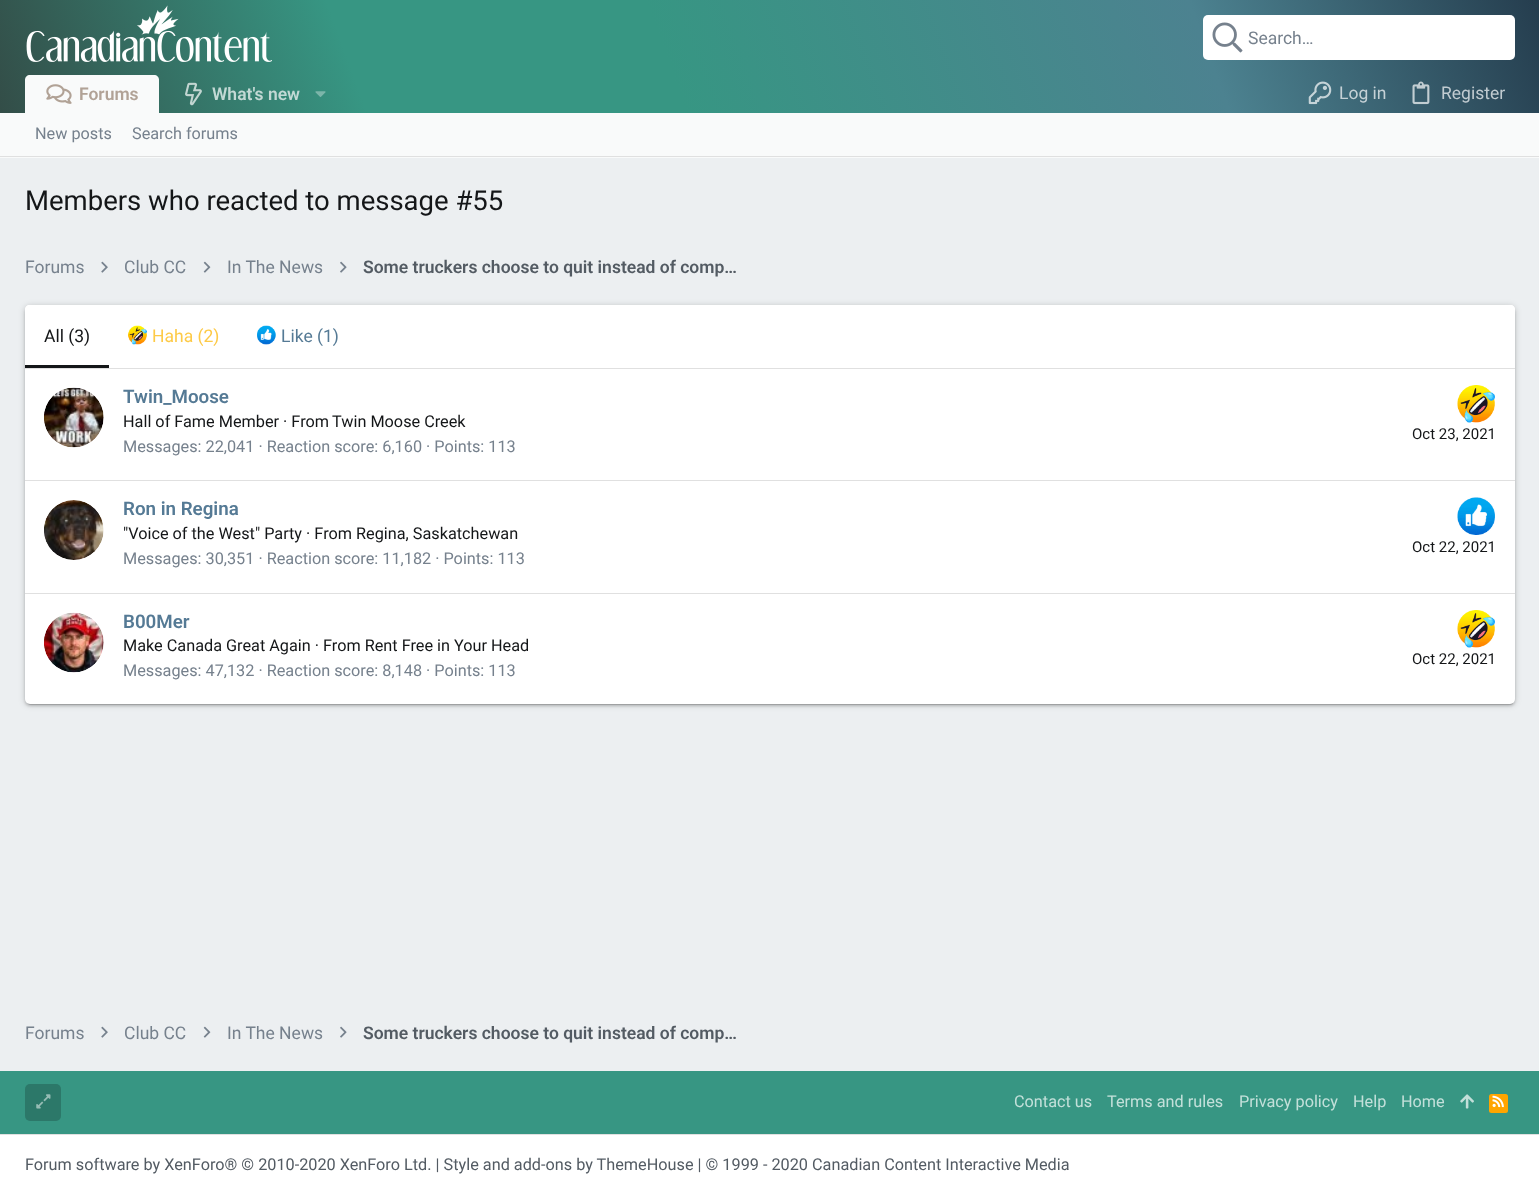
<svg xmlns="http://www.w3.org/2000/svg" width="1539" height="1195">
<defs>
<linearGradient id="g1" gradientUnits="userSpaceOnUse" x1="65" y1="335" x2="1475" y2="-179"><stop offset="0" stop-color="#334a45"/><stop offset="0.24" stop-color="#379683"/><stop offset="0.44" stop-color="#379683"/><stop offset="0.78" stop-color="#4c8290"/><stop offset="1" stop-color="#253d4e"/></linearGradient>
</defs>
<rect width="100%" height="100%" fill="#eceff1"/>
<rect width="1539" height="113" fill="url(#g1)"/>
<image x="26" y="5" width="246" height="57" href="media/1.png"/>
<rect x="1203" y="15" width="312" height="45" rx="5" fill="#fff"/>
<image x="1212" y="22" width="31" height="31" href="media/2.png"/>
<text x="1248" y="44" style="font-family:Roboto;font-size:17.5px;fill:#76818d">Search…</text>
<path d="M30 75h124c3 0 5 2 5 5v33h-134v-33c0-3 2-5 5-5z" fill="#f9fafa"/>
<image x="46" y="84" width="26" height="20" href="media/3.png"/>
<text x="79" y="100" style="font-family:Roboto;font-size:17.5px;font-weight:600;fill:#b1a296">Forums</text>
<image x="185" y="82" width="17" height="24" href="media/4.png"/>
<text x="212" y="100" style="font-family:Roboto;font-size:17.5px;font-weight:600;fill:#c3d9d5">What's new</text>
<image x="315" y="91" width="11" height="6" href="media/5.png"/>
<image x="1308" y="81" width="24" height="24" href="media/6.png"/>
<text x="1339" y="99" style="font-family:Roboto;font-size:17.5px;fill:#c5d1d6">Log in</text>
<image x="1412" y="81" width="18" height="24" href="media/7.png"/>
<text x="1441" y="99" style="font-family:Roboto;font-size:17.5px;fill:#c1cbd0">Register</text>
<rect y="113" width="1539" height="45" fill="#f9fafa"/>
<rect y="156" width="1539" height="1" fill="#e0e0e0"/>
<text x="35" y="139" style="font-family:Roboto;font-size:16.25px;fill:#76818d">New posts</text>
<text x="132" y="139" style="font-family:Roboto;font-size:16.25px;fill:#76818d">Search forums</text>
<text x="25" y="210" style="font-family:Roboto;font-size:27.5px;fill:#141618">Members who reacted to message #55</text>
<text x="25" y="273" style="font-family:Roboto;font-size:17.5px;fill:#76818d">Forums</text>
<image x="101" y="261" width="7" height="12" href="media/8.png"/>
<text x="124" y="273" style="font-family:Roboto;font-size:17.5px;fill:#76818d">Club CC</text>
<image x="203" y="261" width="8" height="12" href="media/9.png"/>
<text x="227" y="273" style="font-family:Roboto;font-size:17.5px;fill:#76818d">In The News</text>
<image x="340" y="261" width="7" height="12" href="media/10.png"/>
<text x="363" y="273" style="font-family:Roboto;font-size:17.5px;font-weight:600;fill:#535b63">Some truckers choose to quit instead of comp…</text>
<rect x="25" y="306" width="1490" height="399" rx="5" fill="#00000033" filter="blur(3px)"/>
<rect x="28" y="311" width="1485" height="394" rx="2.5" fill="#0000001f" filter="blur(0.5px)"/>
<rect x="25" y="308" width="1490" height="398" rx="5" fill="#00000024" filter="blur(1px)"/>
<rect x="25" y="305" width="1490" height="399" rx="5" fill="#fff"/>
<path d="M29 305h1482c2 0 4 2 4 4v60h-1490v-60c0-2 2-4 4-4z" fill="#fff"/>
<rect x="25" y="368" width="1490" height="1" fill="#e0e0e0"/>
<rect x="25" y="365" width="84" height="3" fill="#141618"/>
<text x="44" y="342" style="font-family:Roboto;font-size:17.5px;fill:#141618">All (3)</text>
<image x="128" y="325" width="19" height="20" href="media/11.png"/>
<text x="152" y="342" style="font-family:Roboto;font-size:17.5px;fill:#fdca47">Haha (2)</text>
<image x="257" y="325" width="19" height="20" href="media/12.png"/>
<text x="281" y="342" style="font-family:Roboto;font-size:17.5px;fill:#557a95">Like (1)</text>
<image x="44" y="387" width="60" height="61" href="media/13.png"/>
<text x="123" y="403" style="font-family:Roboto;font-size:18.75px;font-weight:600;fill:#557a95">Twin_Moose</text>
<text x="123" y="427" style="font-family:Roboto;font-size:16.25px;fill:#141618">Hall of Fame Member · From</text>
<text x="332" y="427" style="font-family:Roboto;font-size:16.25px;fill:#141618">Twin Moose Creek</text>
<image x="1457" y="385" width="38" height="38" href="media/14.png"/>
<text x="1412" y="439" style="font-family:Roboto;font-size:15px;fill:#141618">Oct 23, 2021</text>
<text x="123" y="452" style="font-family:Roboto;font-size:16.25px;fill:#76818d">Messages: 22,041 · Reaction score: 6,160 · Points: 113</text>
<rect x="25" y="480" width="1490" height="1" fill="#e0e0e0"/>
<image x="44" y="500" width="60" height="60" href="media/15.png"/>
<text x="123" y="515" style="font-family:Roboto;font-size:18.75px;font-weight:600;fill:#557a95">Ron in Regina</text>
<text x="123" y="539" style="font-family:Roboto;font-size:16.25px;fill:#141618">"Voice of the West" Party · From Regina, Saskatchewan</text>
<image x="1457" y="497" width="38" height="38" href="media/16.png"/>
<text x="1412" y="552" style="font-family:Roboto;font-size:15px;fill:#141618">Oct 22, 2021</text>
<text x="123" y="564" style="font-family:Roboto;font-size:16.25px;fill:#76818d">Messages: 30,351 · Reaction score: 11,182 · Points: 113</text>
<rect x="25" y="593" width="1490" height="1" fill="#e0e0e0"/>
<image x="44" y="612" width="60" height="61" href="media/17.png"/>
<text x="123" y="628" style="font-family:Roboto;font-size:18.75px;font-weight:600;fill:#557a95">B00Mer</text>
<text x="123" y="651" style="font-family:Roboto;font-size:16.25px;fill:#141618">Make Canada Great Again · From Rent Free in Your Head</text>
<image x="1457" y="610" width="38" height="38" href="media/14.png"/>
<text x="1412" y="664" style="font-family:Roboto;font-size:15px;fill:#141618">Oct 22, 2021</text>
<text x="123" y="676" style="font-family:Roboto;font-size:16.25px;fill:#76818d">Messages: 47,132 · Reaction score: 8,148 · Points: 113</text>
<text x="25" y="1039" style="font-family:Roboto;font-size:17.5px;fill:#76818d">Forums</text>
<image x="101" y="1026" width="7" height="12" href="media/8.png"/>
<text x="124" y="1039" style="font-family:Roboto;font-size:17.5px;fill:#76818d">Club CC</text>
<image x="203" y="1026" width="8" height="12" href="media/9.png"/>
<text x="227" y="1039" style="font-family:Roboto;font-size:17.5px;fill:#76818d">In The News</text>
<image x="340" y="1026" width="7" height="12" href="media/10.png"/>
<text x="363" y="1039" style="font-family:Roboto;font-size:17.5px;font-weight:600;fill:#535b63">Some truckers choose to quit instead of comp…</text>
<rect y="1071" width="1539" height="63" fill="#379683"/>
<rect x="25" y="1084" width="36" height="37" rx="5" fill="#2c7869"/>
<image x="36" y="1094" width="15" height="15" href="media/18.png"/>
<text x="1014" y="1107" style="font-family:Roboto;font-size:16.25px;fill:#c3e0da">Contact us</text>
<text x="1107" y="1107" style="font-family:Roboto;font-size:16.25px;fill:#c3e0da">Terms and rules</text>
<text x="1239" y="1107" style="font-family:Roboto;font-size:16.25px;fill:#c3e0da">Privacy policy</text>
<text x="1353" y="1107" style="font-family:Roboto;font-size:16.25px;fill:#c3e0da">Help</text>
<text x="1401" y="1107" style="font-family:Roboto;font-size:16.25px;fill:#c3e0da">Home</text>
<image x="1460" y="1094" width="14" height="15" href="media/19.png"/>
<rect x="1489" y="1094" width="19" height="19" rx="2.5" fill="#ffa500"/>
<image x="1492" y="1095" width="12" height="13" href="media/20.png"/>
<rect y="1135" width="1539" height="60" fill="#fff"/>
<rect y="1134" width="1539" height="1" fill="#e0e0e0"/>
<text x="25" y="1170" style="font-family:Roboto;font-size:16.25px;fill:#535b63">Forum software by XenForo® © 2010-2020 XenForo Ltd. | Style and add-ons by ThemeHouse | © 1999 - 2020 Canadian Content Interactive Media</text>
</svg>
